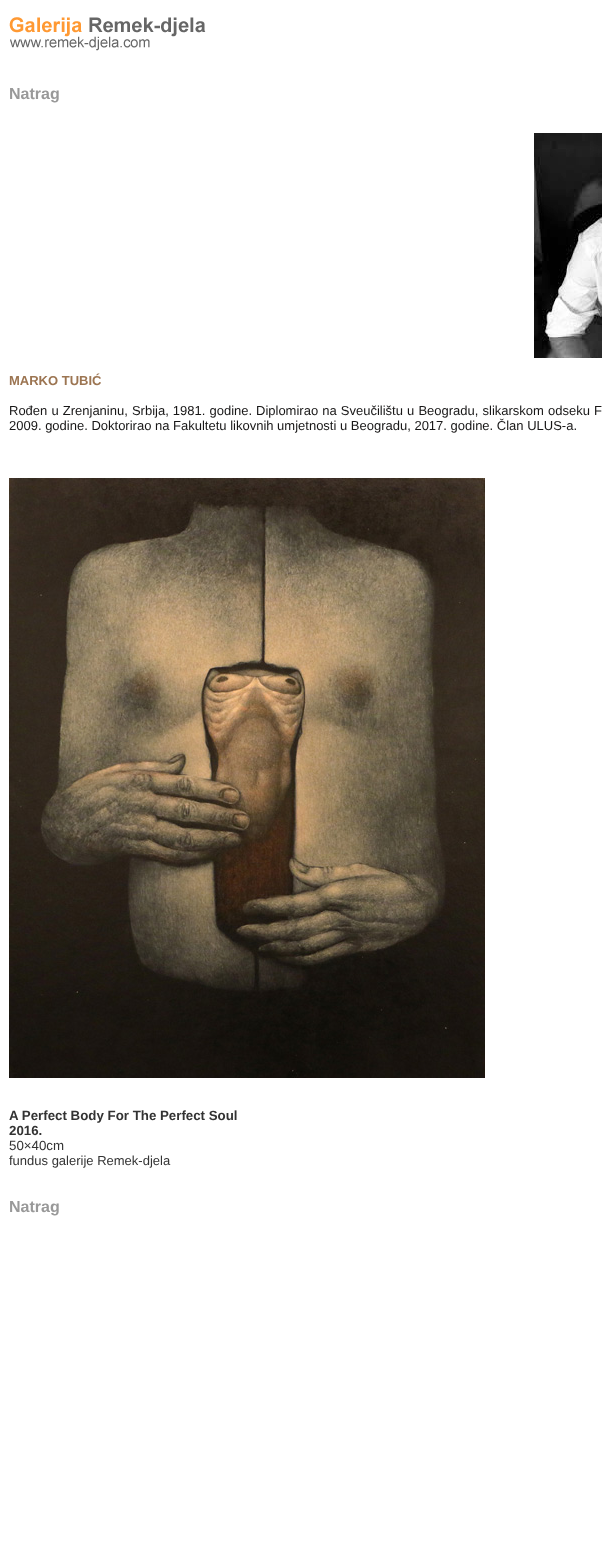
<svg xmlns="http://www.w3.org/2000/svg" width="602" height="1549">
<rect width="100%" height="100%" fill="#fff"/>
<image x="9" y="17" width="197" height="34" href="media/1.png"/>
<text x="9" y="99" style="font-family:Liberation Sans;font-size:16px;font-weight:bold;fill:#999">Natrag</text>
<image x="534" y="133" width="68" height="225" href="media/2.png"/>
<text x="9" y="385" style="font-family:Liberation Sans;font-size:13px;font-weight:bold;fill:#9c7552">MARKO TUBIĆ</text>
<text x="9" y="415" word-spacing="0.5" style="font-family:Liberation Sans;font-size:13px;fill:#181717">Rođen u Zrenjaninu, Srbija, 1981. godine.</text>
<text x="256" y="415" word-spacing="0.5" style="font-family:Liberation Sans;font-size:13px;fill:#181717">Diplomirao na Sveučilištu u Beogradu, slikarskom odseku F</text>
<text x="9" y="430" style="font-family:Liberation Sans;font-size:13px;fill:#181717">2009. godine. Doktorirao na Fakultetu likovnih umjetnosti u Beogradu, 2017. godine. Član ULUS-a.</text>
<image x="9" y="478" width="476" height="600" href="media/3.png"/>
<text x="9" y="1120" style="font-family:Liberation Sans;font-size:13.3px;font-weight:bold;fill:#333">A Perfect Body For The Perfect Soul</text>
<text x="9" y="1135" style="font-family:Liberation Sans;font-size:13.3px;font-weight:bold;fill:#333">2016.</text>
<text x="9" y="1150" style="font-family:Liberation Sans;font-size:13.3px;fill:#333">50×40cm</text>
<text x="9" y="1165" style="font-family:Liberation Sans;font-size:13px;fill:#333">fundus galerije Remek-djela</text>
<text x="9" y="1212" style="font-family:Liberation Sans;font-size:16px;font-weight:bold;fill:#999">Natrag</text>
</svg>
